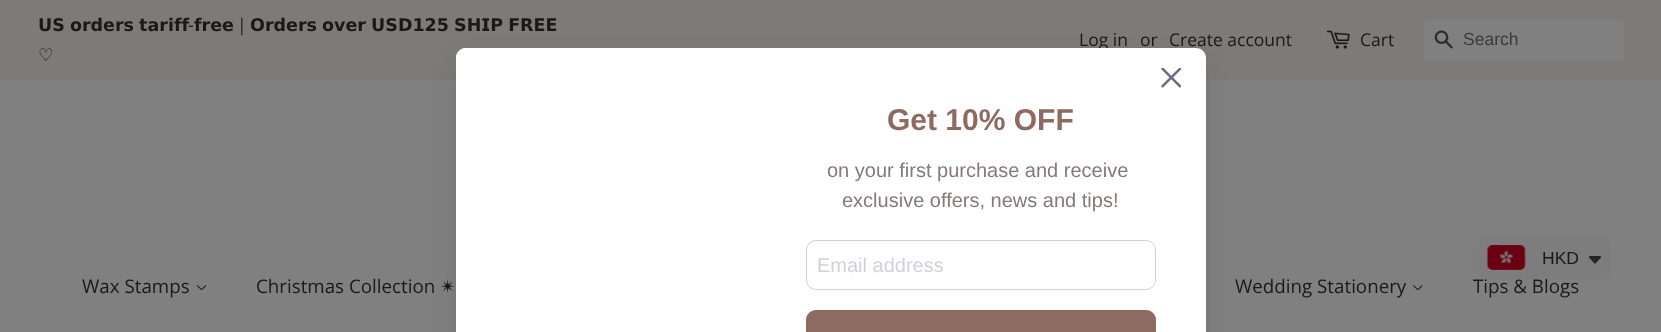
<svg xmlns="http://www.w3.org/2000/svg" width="1661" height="332">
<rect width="100%" height="100%" fill="#808080"/>
<rect width="1661" height="80" fill="#7d7a79"/>
<text x="38" y="31" word-spacing="-1" style="font-family:DejaVu Sans;font-size:17.5px;font-weight:bold;fill:#1a1919">𝗨𝗦 𝗼𝗿𝗱𝗲𝗿𝘀 𝘁𝗮𝗿𝗶𝗳𝗳</text>
<text x="188" y="31" style="font-family:Open Sans;font-size:17.5px;fill:#1a1919">-</text>
<text x="194" y="31" style="font-family:DejaVu Sans;font-size:17.5px;font-weight:bold;fill:#1a1919">𝗳𝗿𝗲𝗲</text>
<text x="237" y="31" style="font-family:Open Sans;font-size:17.5px;fill:#1a1919">|</text>
<text x="250" y="31" word-spacing="-1" style="font-family:DejaVu Sans;font-size:17.5px;font-weight:bold;fill:#1a1919">𝗢𝗿𝗱𝗲𝗿𝘀 𝗼𝘃𝗲𝗿 𝗨𝗦𝗗𝟭𝟮𝟱 𝗦𝗛𝗜𝗣 𝗙𝗥𝗘𝗘</text>
<text x="38" y="61" style="font-family:DejaVu Sans;font-size:17.5px;font-weight:bold;fill:#1a1919">♡</text>
<text x="1079" y="46" style="font-family:Open Sans;font-size:17.5px;fill:#1a1919">Log in</text>
<text x="1140" y="46" style="font-family:Open Sans;font-size:17.5px;fill:#1a1919">or</text>
<text x="1169" y="46" style="font-family:Open Sans;font-size:17.5px;fill:#1a1919">Create account</text>
<image x="1326" y="30" width="24" height="19" href="media/1.png"/>
<text x="1360" y="46" style="font-family:Open Sans;font-size:17.5px;fill:#1a1919">Cart</text>
<rect x="1424" y="20" width="200" height="40" rx="2.5" fill="#808080"/>
<image x="1434" y="30" width="19" height="19" href="media/2.png"/>
<text x="1463" y="45" style="font-family:Liberation Sans;font-size:17.5px;fill:#3b3b3b">Search</text>
<text x="82" y="293" style="font-family:Open Sans;font-size:18.75px;fill:#1a1919">Wax Stamps</text>
<image x="196" y="285" width="11" height="6" href="media/3.png"/>
<text x="256" y="293" style="font-family:Open Sans;font-size:18.75px;fill:#1a1919">Christmas Collection</text>
<text x="440" y="293" style="font-family:DejaVu Sans;font-size:18.75px;fill:#1a1919">✴</text>
<text x="1235" y="293" style="font-family:Open Sans;font-size:18.75px;fill:#1a1919">Wedding Stationery</text>
<image x="1413" y="285" width="10" height="6" href="media/4.png"/>
<text x="1473" y="293" style="font-family:Open Sans;font-size:18.75px;fill:#1a1919">Tips &amp; Blogs</text>
<rect x="456" y="58" width="750" height="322" rx="10" fill="#1211271a" filter="blur(12.5px)"/>
<path d="M466 48h730c5.5 0 10 4.5 10 10v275h-750v-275c0-5.5 4.5-10 10-10z" fill="#fff"/>
<path d="M466 48h290v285h-300v-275c0-5.5 4.5-10 10-10z" fill="#fff"/>
<image x="1161" y="68" width="20" height="20" href="media/5.png"/>
<text x="887" y="130" style="font-family:Liberation Sans;font-size:30px;font-weight:bold;fill:#8e6b61">Get 10% OFF</text>
<text x="827" y="177" style="font-family:Liberation Sans;font-size:20px;fill:#837a7a">on your first purchase and receive</text>
<text x="842" y="207" style="font-family:Liberation Sans;font-size:20px;fill:#837a7a">exclusive offers, news and tips!</text>
<rect x="806.5" y="240.5" width="349" height="49" rx="9.5" fill="none" stroke="#d1d1db"/>
<text x="817" y="272" style="font-family:Liberation Sans;font-size:20px;fill:#d1d1db">Email address</text>
<path d="M816 310h330c5.5 0 10 4.5 10 10v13h-350v-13c0-5.5 4.5-10 10-10z" fill="#8e6b61"/>
<rect x="1479" y="236" width="132" height="43" rx="6" fill="#7d7d7d"/>
<image x="1487" y="245" width="39" height="25" href="media/6.png"/>
<text x="1542" y="264" style="font-family:Liberation Sans;font-size:17.5px;fill:#1a1919">HKD</text>
<path d="M1588.5 257l1.5-1h10l1.5 1l-6.5 7z" fill="#242521"/>
</svg>
